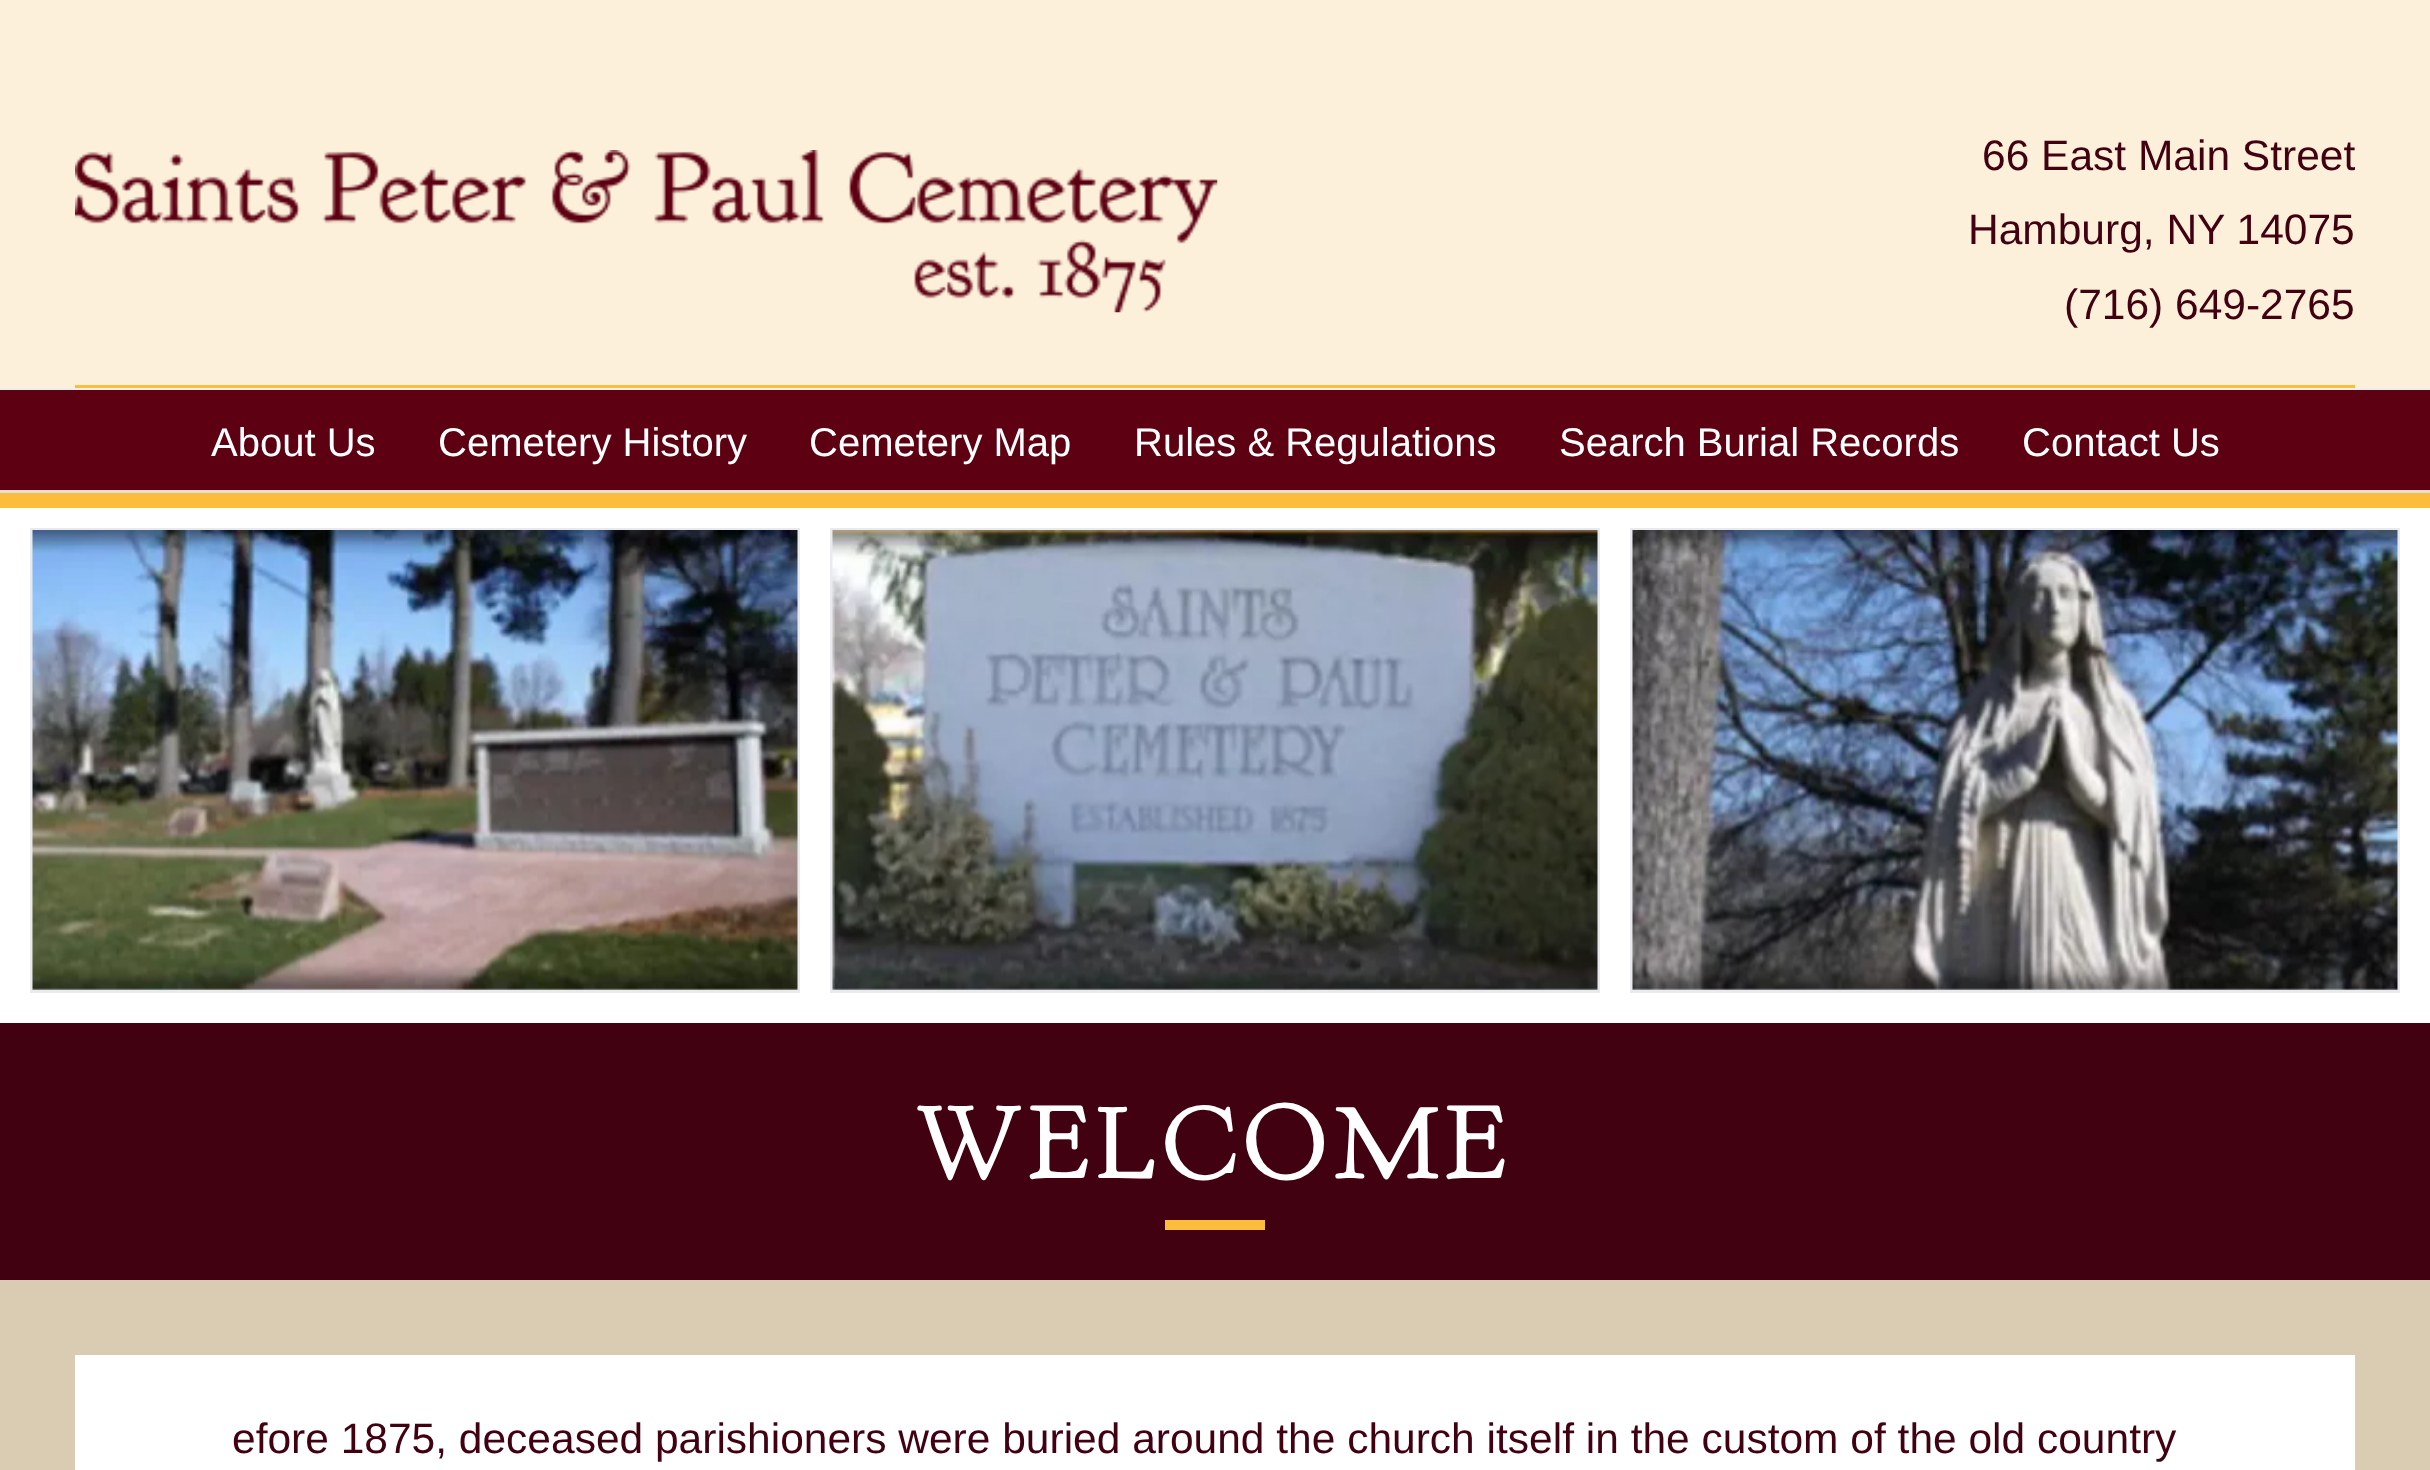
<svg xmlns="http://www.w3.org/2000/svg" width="2430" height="1470">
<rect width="100%" height="100%" fill="#fcf0db"/>
<rect y="388" width="2430" height="2" fill="#ededed"/>
<image x="75" y="150" width="1143" height="163" href="media/1.png"/>
<text x="1982" y="170" style="font-family:Liberation Sans;font-size:42.5px;fill:#410111">66 East Main Street</text>
<text x="1968" y="244" style="font-family:Liberation Sans;font-size:42.5px;fill:#410111">Hamburg, NY 14075</text>
<text x="2064" y="319" style="font-family:Liberation Sans;font-size:42.5px;fill:#410111">(716) 649-2765</text>
<rect x="75" y="385" width="2280" height="3" fill="#fcbc3c"/>
<rect y="390" width="2430" height="100" fill="#5d0012"/>
<rect y="490" width="2430" height="3" fill="#e4dfcf"/>
<text x="211" y="456" style="font-family:Liberation Sans;font-size:40px;fill:#fff">About Us</text>
<text x="438" y="456" style="font-family:Liberation Sans;font-size:40px;fill:#fff">Cemetery History</text>
<text x="809" y="456" style="font-family:Liberation Sans;font-size:40px;fill:#fff">Cemetery Map</text>
<text x="1134" y="456" style="font-family:Liberation Sans;font-size:40px;fill:#fff">Rules &amp; Regulations</text>
<text x="1559" y="456" style="font-family:Liberation Sans;font-size:40px;fill:#fff">Search Burial Records</text>
<text x="2022" y="456" style="font-family:Liberation Sans;font-size:40px;fill:#fff">Contact Us</text>
<rect y="508" width="2430" height="515" fill="#fff"/>
<rect y="493" width="2430" height="15" fill="#fcbc3c"/>
<rect x="31.5" y="529.5" width="767" height="462" fill="none" stroke="#e9eaee" stroke-width="3"/>
<image x="32" y="530" width="766" height="460" href="media/2.png"/>
<rect x="831.5" y="529.5" width="767" height="462" fill="none" stroke="#e9eaee" stroke-width="3"/>
<image x="832" y="530" width="766" height="460" href="media/3.png"/>
<rect x="1631.5" y="529.5" width="767" height="462" fill="none" stroke="#e9eaee" stroke-width="3"/>
<image x="1632" y="530" width="766" height="460" href="media/4.png"/>
<rect y="1023" width="2430" height="257" fill="#410111"/>
<text x="916" y="1178" style="font-family:'Goudy Bookletter 1911';font-size:105px;letter-spacing:7.5px;fill:#fff">WELCOME</text>
<rect x="1165" y="1220" width="100" height="10" fill="#fcbc3c"/>
<rect y="1280" width="2430" height="190" fill="#d9ccb2"/>
<rect x="75" y="1355" width="2280" height="115" fill="#fff"/>
<text x="232" y="1453" style="font-family:Liberation Sans;font-size:42.5px;fill:#410111">efore 1875, deceased parishioners were buried around the church itself in the custom of the old country</text>
</svg>
